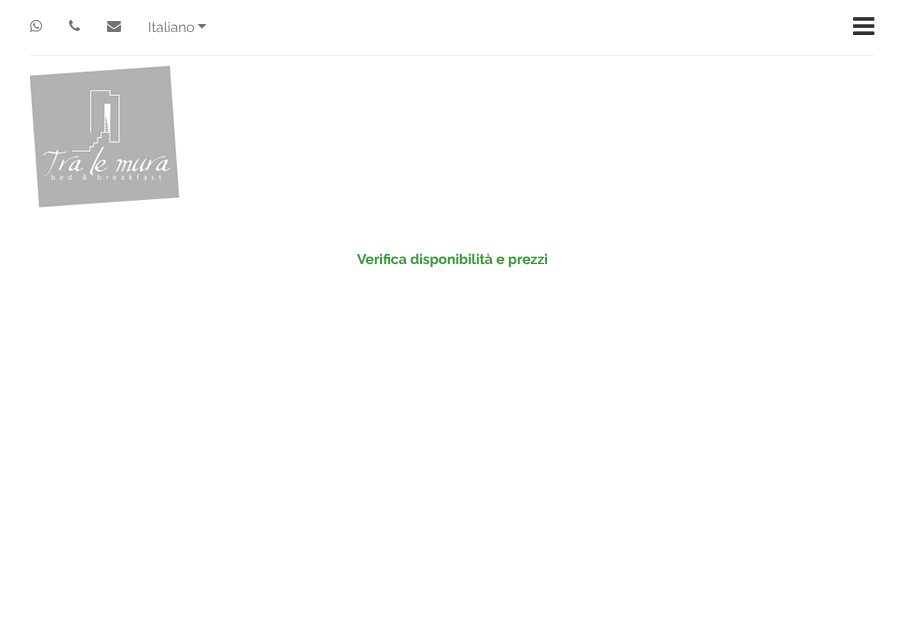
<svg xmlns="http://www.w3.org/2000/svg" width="904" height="644">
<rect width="100%" height="100%" fill="#fff"/>
<rect x="30" y="55" width="844" height="1" fill="#f0f0f0"/>
<image x="30" y="20" width="12" height="12" href="media/1.png"/>
<image x="69" y="20" width="11" height="11" href="media/2.png"/>
<image x="107" y="21" width="14" height="11" href="media/3.png"/>
<text x="148" y="32" style="font-family:Raleway;font-size:14px;fill:#747474">Italiano</text>
<image x="198" y="24" width="8" height="5" href="media/4.png"/>
<image x="853" y="17" width="22" height="18" href="media/5.png"/>
<image x="30" y="65" width="150" height="143" href="media/6.png"/>
<text x="357" y="264" style="font-family:Raleway;font-size:14px;font-weight:bold;fill:#393">Verifica disponibilità e prezzi</text>
</svg>
